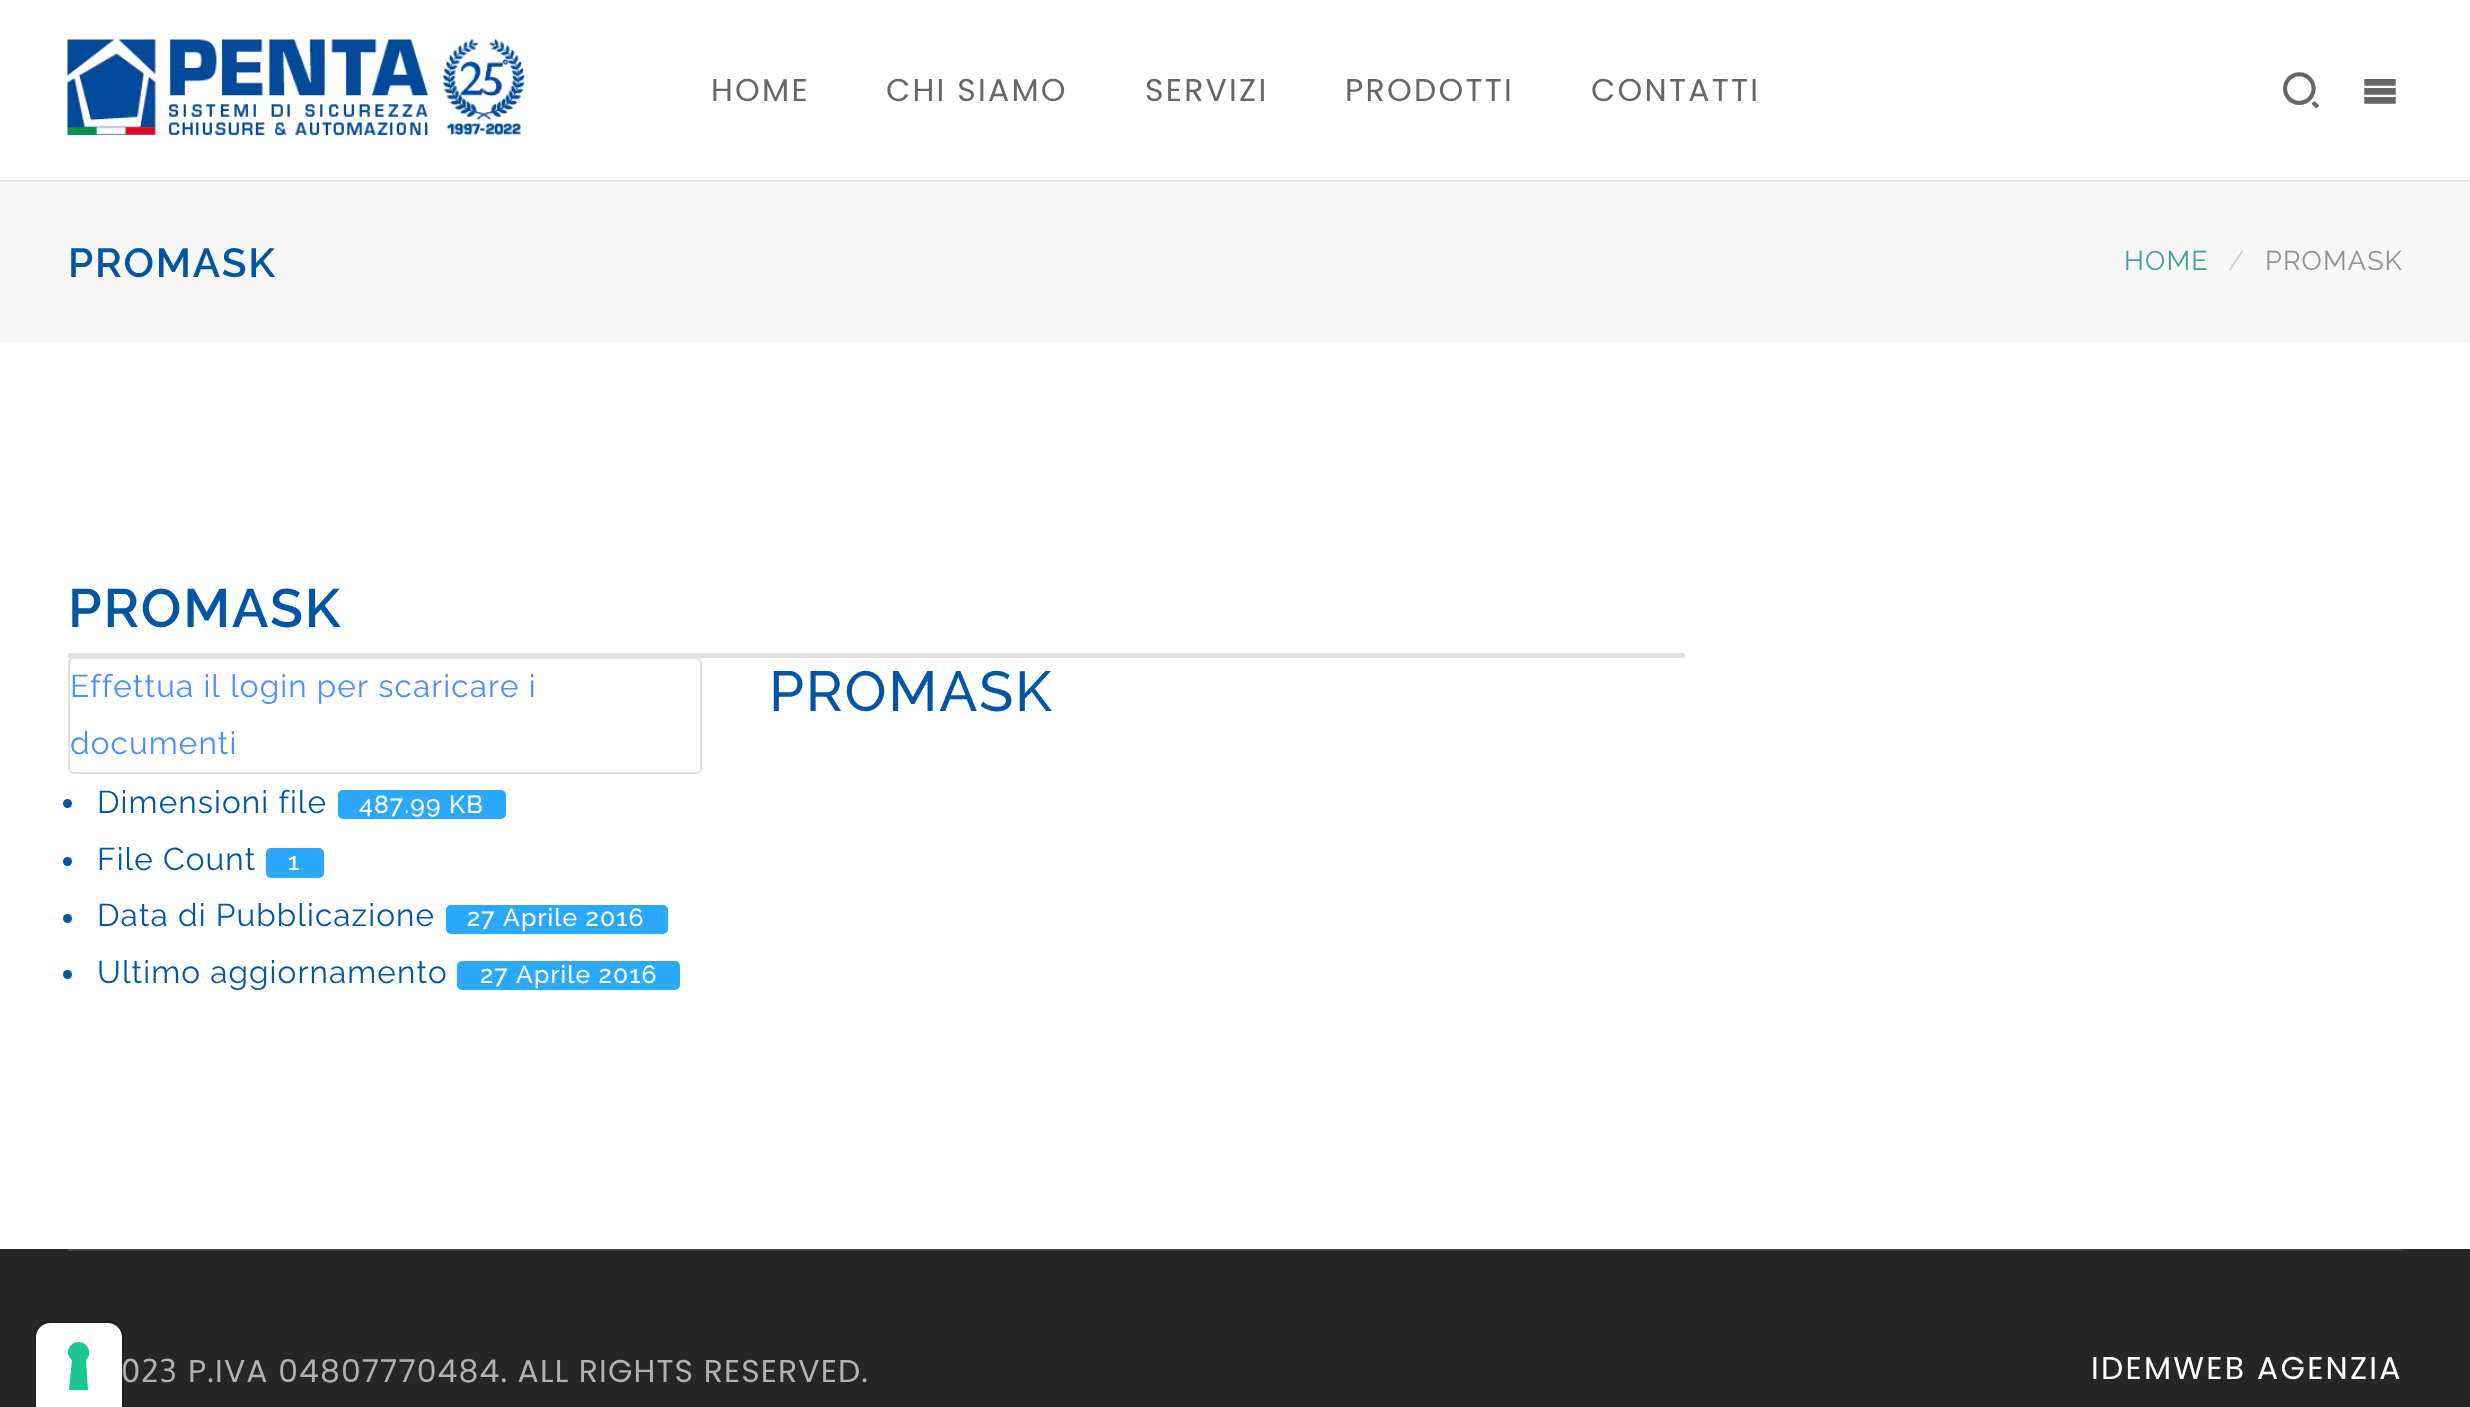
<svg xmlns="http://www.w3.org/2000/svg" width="2470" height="1407">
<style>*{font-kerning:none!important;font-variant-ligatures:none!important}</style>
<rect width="100%" height="100%" fill="#fff"/>
<rect y="180" width="2470" height="2" fill="#e5e5e5"/>
<image x="67" y="39" width="458" height="97" href="media/1.png"/>
<text x="711" y="101" style="font-family:Poppins;font-size:31.5px;letter-spacing:2.25px;fill:#666">HOME</text>
<text x="886" y="101" style="font-family:Poppins;font-size:31.5px;letter-spacing:2.25px;fill:#666">CHI SIAMO</text>
<text x="1145" y="101" style="font-family:Poppins;font-size:31.5px;letter-spacing:2.25px;fill:#666">SERVIZI</text>
<text x="1345" y="101" style="font-family:Poppins;font-size:31.5px;letter-spacing:2.25px;fill:#666">PRODOTTI</text>
<text x="1591" y="101" style="font-family:Poppins;font-size:31.5px;letter-spacing:2.25px;fill:#666">CONTATTI</text>
<text x="2283" y="106" style="font-family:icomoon;font-size:36px;letter-spacing:1.1px;fill:#666">󨀆</text>
<text x="2362" y="106" style="font-family:icomoon;font-size:36px;letter-spacing:1.1px;fill:#666">󨁷</text>
<rect y="182" width="2470" height="160" fill="#f7f7f7"/>
<text x="68" y="277" style="font-family:Raleway;font-size:40.5px;font-weight:600;letter-spacing:1.75px;fill:#0055a5">PROMASK</text>
<text x="2124" y="270" style="font-family:Raleway;font-size:27px;letter-spacing:1.1px;fill:#449ca4">HOME</text>
<text x="2228" y="270" style="font-family:Raleway;font-size:27px;letter-spacing:1.1px;fill:#ccc">/</text>
<text x="2265" y="270" style="font-family:Raleway;font-size:27px;letter-spacing:1.1px;fill:#919191">PROMASK</text>
<text x="68" y="627" style="font-family:Raleway;font-size:54px;font-weight:600;letter-spacing:1.75px;fill:#0055a5">PROMASK</text>
<rect x="68" y="653" width="1617" height="5" rx="2.5" fill="#dfdfdf"/>
<rect x="68" y="657" width="634" height="117" rx="6" fill="#fff"/>
<rect x="69" y="658" width="632" height="115" rx="5" fill="none" stroke="#0000001f" stroke-width="2"/>
<text x="70" y="697" style="font-family:Raleway;font-size:31.5px;letter-spacing:1.1px;fill:#4a8eff">Effettua il login per scaricare i</text>
<text x="70" y="754" style="font-family:Raleway;font-size:31.5px;letter-spacing:1.1px;fill:#4a8eff">documenti</text>
<circle cx="67.5" cy="803.5" r="4.5" fill="#0055a5"/>
<text x="97" y="813" style="font-family:Raleway;font-size:31.5px;letter-spacing:1.1px;fill:#0055a5">Dimensioni file</text>
<rect x="338" y="790" width="168" height="29" rx="5" fill="#2ca8ff"/>
<text x="359" y="813" style="font-family:Raleway;font-size:24.75px;font-weight:500;letter-spacing:1.1px;fill:#fff">487.99 KB</text>
<circle cx="67.5" cy="861.5" r="4.5" fill="#0055a5"/>
<text x="97" y="870" style="font-family:Raleway;font-size:31.5px;letter-spacing:1.1px;fill:#0055a5">File Count</text>
<rect x="266" y="848" width="58" height="30" rx="5" fill="#2ca8ff"/>
<text x="288" y="870" style="font-family:Raleway;font-size:24.75px;font-weight:500;letter-spacing:1.1px;fill:#fff">1</text>
<circle cx="67.5" cy="918.5" r="4.5" fill="#0055a5"/>
<text x="97" y="926" style="font-family:Raleway;font-size:31.5px;letter-spacing:1.1px;fill:#0055a5">Data di Pubblicazione</text>
<rect x="446" y="905" width="222" height="29" rx="5" fill="#2ca8ff"/>
<text x="467" y="926" style="font-family:Raleway;font-size:24.75px;font-weight:500;letter-spacing:1.1px;fill:#fff">27 Aprile 2016</text>
<circle cx="67.5" cy="974.5" r="4.5" fill="#0055a5"/>
<text x="97" y="983" style="font-family:Raleway;font-size:31.5px;letter-spacing:1.1px;fill:#0055a5">Ultimo aggiornamento</text>
<rect x="457" y="961" width="223" height="29" rx="5" fill="#2ca8ff"/>
<text x="480" y="983" style="font-family:Raleway;font-size:24.75px;font-weight:500;letter-spacing:1.1px;fill:#fff">27 Aprile 2016</text>
<text x="769" y="711" style="font-family:Raleway;font-size:56.25px;font-weight:500;letter-spacing:1.75px;fill:#0055a5">PROMASK</text>
<rect y="1249" width="2470" height="158" fill="#262626"/>
<rect x="68" y="1249" width="2335" height="2" fill="#454545"/>
<text x="121" y="1382" style="font-family:Oxygen;font-size:31.5px;letter-spacing:1.1px;fill:#b1b1b1">023</text>
<text x="188" y="1382" style="font-family:Poppins;font-size:31.5px;letter-spacing:1.1px;fill:#b1b1b1">P.IVA 04807770484. ALL RIGHTS RESERVED.</text>
<text x="2091" y="1379" style="font-family:Poppins;font-size:31.5px;letter-spacing:2.25px;fill:#fff">IDEMWEB AGENZIA</text>
<path d="M50 1322h58c8.5 0 15 6.5 15 15v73h-88v-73c0-8.5 6.5-15 15-15z" fill="none" stroke="#00000026" stroke-width="2"/>
<path d="M50 1323h58c7.5 0 14 6.5 14 14v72h-86v-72c0-7.5 6.5-14 14-14z" fill="#fff"/>
<path d="M79 1342c9 0 14 12 7 18l2 30h-19l3-30c-8-6-3-18 7-18z" fill="#1cc691" fill-rule="evenodd"/>
</svg>
